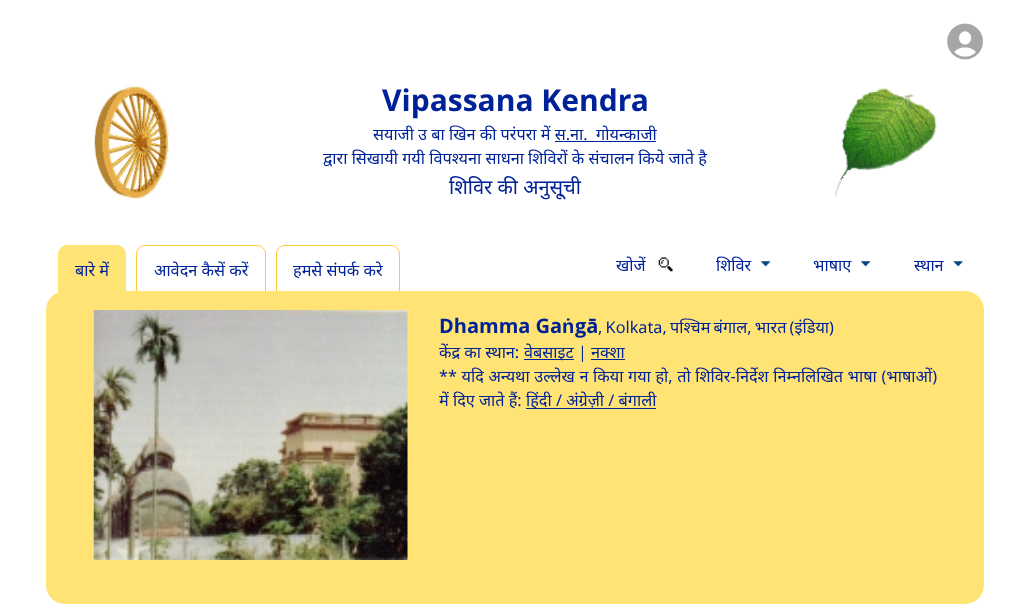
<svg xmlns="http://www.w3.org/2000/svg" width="1029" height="616">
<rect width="100%" height="100%" fill="#fff"/>
<image x="947" y="23" width="36" height="37" href="media/1.png"/>
<image x="94" y="86" width="75" height="113" href="media/2.png"/>
<text x="382" y="111" style="font-family:Open Sans;font-size:30px;font-weight:bold;fill:#029">Vipassana Kendra</text>
<text x="373" y="140" style="font-family:Noto Sans;font-size:16.25px;fill:#029" xml:space="preserve">सयाजी उ बा खिन की परंपरा में स.ना.  गोयन्काजी</text>
<rect x="555" y="141" width="101" height="1" fill="#029"/>
<text x="323" y="164" style="font-family:Noto Sans;font-size:16.25px;fill:#029">द्वारा सिखायी गयी विपश्यना साधना शिविरों के संचालन किये जाते है</text>
<text x="449" y="194" style="font-family:Noto Sans;font-size:20px;fill:#029">शिविर की अनुसू्ची</text>
<image x="834" y="88" width="103" height="111" href="media/3.png"/>
<path d="M67 245.5h50c4.5 0 8.5 4 8.5 8.5v40.5h-67v-40.5c0-4.5 4-8.5 8.5-8.5z" fill="#ffe475" stroke="#ffe475"/>
<text x="75" y="276" style="font-family:Noto Sans;font-size:16.25px;fill:#029">बारे में</text>
<path d="M145 245.5h112c4.5 0 8.5 4 8.5 8.5v40.5h-129v-40.5c0-4.5 4-8.5 8.5-8.5z" fill="none" stroke="#fc3"/>
<text x="154" y="276" style="font-family:Noto Sans;font-size:16.25px;fill:#029">आवेदन कैसें करें</text>
<path d="M285 245.5h106c4.5 0 8.5 4 8.5 8.5v40.5h-123v-40.5c0-4.5 4-8.5 8.5-8.5z" fill="none" stroke="#fc3"/>
<text x="293" y="276" style="font-family:Noto Sans;font-size:16.25px;fill:#029">हमसे संपर्क करे</text>
<text x="616" y="271" style="font-family:Noto Sans;font-size:16.25px;fill:#029">खोजें</text>
<image x="658" y="257" width="15" height="15" href="media/4.png"/>
<text x="716" y="271" style="font-family:Noto Sans;font-size:16.25px;fill:#029">शिविर</text>
<image x="761" y="261" width="9" height="6" href="media/5.png"/>
<text x="813" y="271" style="font-family:Noto Sans;font-size:16.25px;fill:#029">भाषाए</text>
<image x="861" y="261" width="9" height="6" href="media/5.png"/>
<text x="914" y="271" style="font-family:Noto Sans;font-size:16.25px;fill:#029">स्थान</text>
<image x="953" y="261" width="10" height="6" href="media/6.png"/>
<rect x="46" y="291" width="938" height="313" rx="19" fill="#ffe475"/>
<image x="93" y="310" width="315" height="250" href="media/7.png"/>
<text x="439" y="333" style="font-family:Open Sans;font-size:20px;font-weight:bold;fill:#029">Dhamma Ga</text>
<text x="562" y="333" style="font-family:Liberation Sans;font-size:20px;font-weight:bold;fill:#029">ṅ</text>
<text x="575" y="333" style="font-family:Open Sans;font-size:20px;font-weight:bold;fill:#029">gā</text>
<text x="598" y="333" word-spacing="-1" style="font-family:Noto Sans;font-size:16.25px;fill:#029">, Kolkata, पश्चिम बंगाल, भारत (इंडिया)</text>
<text x="439" y="358" style="font-family:Noto Sans;font-size:16.25px;fill:#029">केंद्र का स्थान:</text>
<rect x="524" y="359" width="50" height="1" fill="#029"/>
<text x="524" y="358" style="font-family:Noto Sans;font-size:16.25px;fill:#029">वेबसाइट</text>
<text x="578" y="358" style="font-family:Open Sans;font-size:16.25px;fill:#029">|</text>
<text x="591" y="358" style="font-family:Noto Sans;font-size:16.25px;fill:#029">नक्शा</text>
<rect x="591" y="359" width="34" height="1" fill="#029"/>
<text x="439" y="382" word-spacing="0.4" style="font-family:Noto Sans;font-size:16.25px;fill:#029">** यदि अन्यथा उल्लेख न किया गया हो, तो शिविर-निर्देश निम्नलिखित भाषा (भाषाओं)</text>
<text x="439" y="406" style="font-family:Noto Sans;font-size:16.25px;fill:#029">में दिए जाते हैं:</text>
<rect x="526" y="408" width="130" height="1" fill="#029"/>
<text x="526" y="406" style="font-family:Noto Sans;font-size:16.25px;fill:#029">हिंदी / अंग्रेज़ी / बंगाली</text>
</svg>
